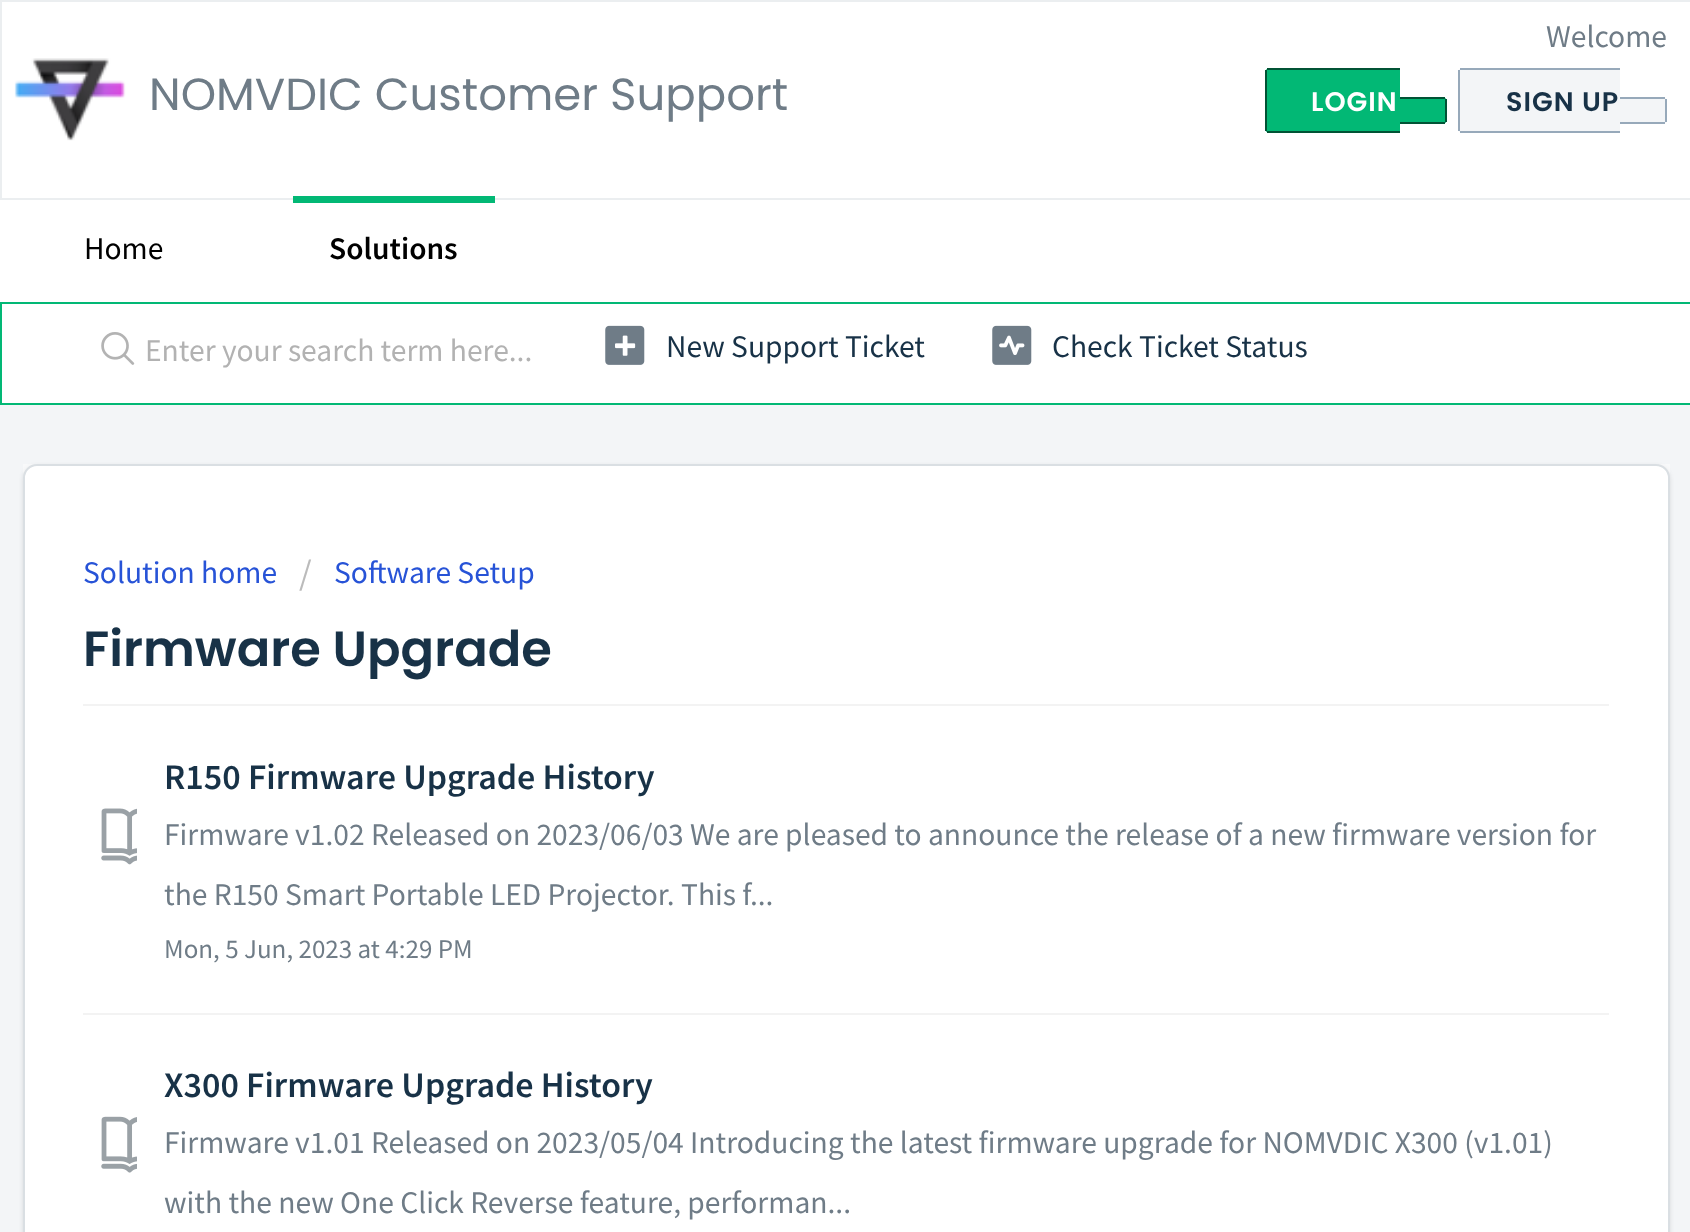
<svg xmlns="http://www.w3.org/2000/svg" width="1690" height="1232">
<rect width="100%" height="100%" fill="#f3f5f7"/>
<rect x="1" y="1" width="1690" height="198" fill="#fff" stroke="#ebeef0" stroke-width="2"/>
<image x="14" y="58" width="112" height="83" href="media/1.png"/>
<text x="149" y="110" style="font-family:Poppins;font-size:45px;fill:#6f7c87">NOMVDIC Customer Support</text>
<text x="1546" y="47" style="font-family:Source Sans Pro;font-size:31.5px;fill:#6f7c87">Welcome</text>
<path d="M1270 68h130v65h-130c-3 0-5-2-5-5v-55c0-3 2-5 5-5z" fill="#02b875"/>
<text x="1311" y="111" style="font-family:Poppins;font-size:27px;font-weight:600;letter-spacing:1px;fill:#fff">LOGIN</text>
<rect x="1267" y="68" width="133" height="2" fill="#015335"/>
<rect x="1267" y="131" width="133" height="2" fill="#015335"/>
<rect x="1265" y="70" width="2" height="61" fill="#015335"/>
<path d="M1400 97h42c3 0 5 2 5 5v17c0 3-2 5-5 5h-42z" fill="#02b875"/>
<rect x="1400" y="97" width="45" height="2" fill="#015335"/>
<rect x="1445" y="99" width="2" height="23" fill="#015335"/>
<rect x="1400" y="122" width="45" height="2" fill="#015335"/>
<path d="M1463 68h157v65h-157c-3 0-5-2-5-5v-55c0-3 2-5 5-5z" fill="#f3f5f7"/>
<text x="1506" y="111" style="font-family:Poppins;font-size:27px;font-weight:600;letter-spacing:1px;fill:#183247">SIGN UP</text>
<rect x="1460" y="68" width="160" height="2" fill="#97a9ba"/>
<rect x="1460" y="131" width="160" height="2" fill="#97a9ba"/>
<rect x="1458" y="70" width="2" height="61" fill="#97a9ba"/>
<path d="M1620 97h42c3 0 5 2 5 5v17c0 3-2 5-5 5h-42z" fill="#f3f5f7"/>
<rect x="1620" y="97" width="45" height="2" fill="#97a9ba"/>
<rect x="1665" y="99" width="2" height="23" fill="#97a9ba"/>
<rect x="1620" y="122" width="45" height="2" fill="#97a9ba"/>
<rect y="200" width="1690" height="102" fill="#fff"/>
<text x="84" y="259" style="font-family:Source Sans Pro;font-size:31.5px;fill:#000">Home</text>
<rect x="293" y="196" width="202" height="7" fill="#02b875"/>
<text x="329" y="259" style="font-family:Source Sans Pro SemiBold;font-size:31.5px;font-weight:600;fill:#000">Solutions</text>
<rect x="1" y="303" width="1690" height="101" fill="#fff" stroke="#02b875" stroke-width="2"/>
<image x="101" y="332" width="34" height="33" href="media/2.png"/>
<text x="145" y="361" style="font-family:Source Sans Pro;font-size:31.5px;fill:#b2b2b2">Enter your search term here...</text>
<image x="605" y="325" width="40" height="40" href="media/3.png"/>
<text x="666" y="357" style="font-family:Source Sans Pro;font-size:31.5px;fill:#183247">New Support Ticket</text>
<image x="992" y="325" width="40" height="40" href="media/4.png"/>
<text x="1052" y="357" style="font-family:Source Sans Pro;font-size:31.5px;fill:#183247">Check Ticket Status</text>
<rect x="23" y="464" width="1647" height="14" fill="#f8f9fa"/>
<rect x="23" y="466" width="1647" height="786" rx="14" fill="#3f3f4426" filter="blur(2px)"/>
<rect x="24" y="465" width="1645" height="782" rx="13" fill="#fff" stroke="#dadfe3" stroke-width="2"/>
<text x="83" y="583" style="font-family:Source Sans Pro;font-size:31.5px;fill:#2753d7">Solution home</text>
<text x="299" y="585" style="font-family:Source Sans Pro;font-size:36px;fill:#bbb">/</text>
<text x="334" y="583" style="font-family:Source Sans Pro;font-size:31.5px;fill:#2753d7">Software Setup</text>
<text x="83" y="666" style="font-family:Poppins;font-size:49.5px;font-weight:600;fill:#183247">Firmware Upgrade</text>
<rect x="83" y="704" width="1526" height="2" fill="#f3f3f3"/>
<text x="164" y="789" style="font-family:Source Sans Pro SemiBold;font-size:36px;font-weight:600;fill:#183247">R150 Firmware Upgrade History</text>
<image x="101" y="808" width="36" height="57" href="media/5.png"/>
<text x="164" y="845" style="font-family:Source Sans Pro;font-size:31.5px;fill:#6f7c87">Firmware v1.02 Released on 2023/06/03 We are pleased to announce the release of a new firmware version for</text>
<text x="164" y="905" style="font-family:Source Sans Pro;font-size:31.5px;fill:#6f7c87">the R150 Smart Portable LED Projector. This f...</text>
<text x="164" y="958" style="font-family:Source Sans Pro;font-size:27px;fill:#6f7c87">Mon, 5 Jun, 2023 at 4:29 PM</text>
<rect x="83" y="1013" width="1526" height="2" fill="#f3f3f3"/>
<text x="164" y="1097" style="font-family:Source Sans Pro SemiBold;font-size:36px;font-weight:600;fill:#183247">X300 Firmware Upgrade History</text>
<image x="101" y="1116" width="36" height="57" href="media/6.png"/>
<text x="164" y="1153" style="font-family:Source Sans Pro;font-size:31.5px;fill:#6f7c87">Firmware v1.01 Released on 2023/05/04 Introducing the latest firmware upgrade for NOMVDIC X300 (v1.01)</text>
<text x="164" y="1213" style="font-family:Source Sans Pro;font-size:31.5px;fill:#6f7c87">with the new One Click Reverse feature, performan...</text>
</svg>
